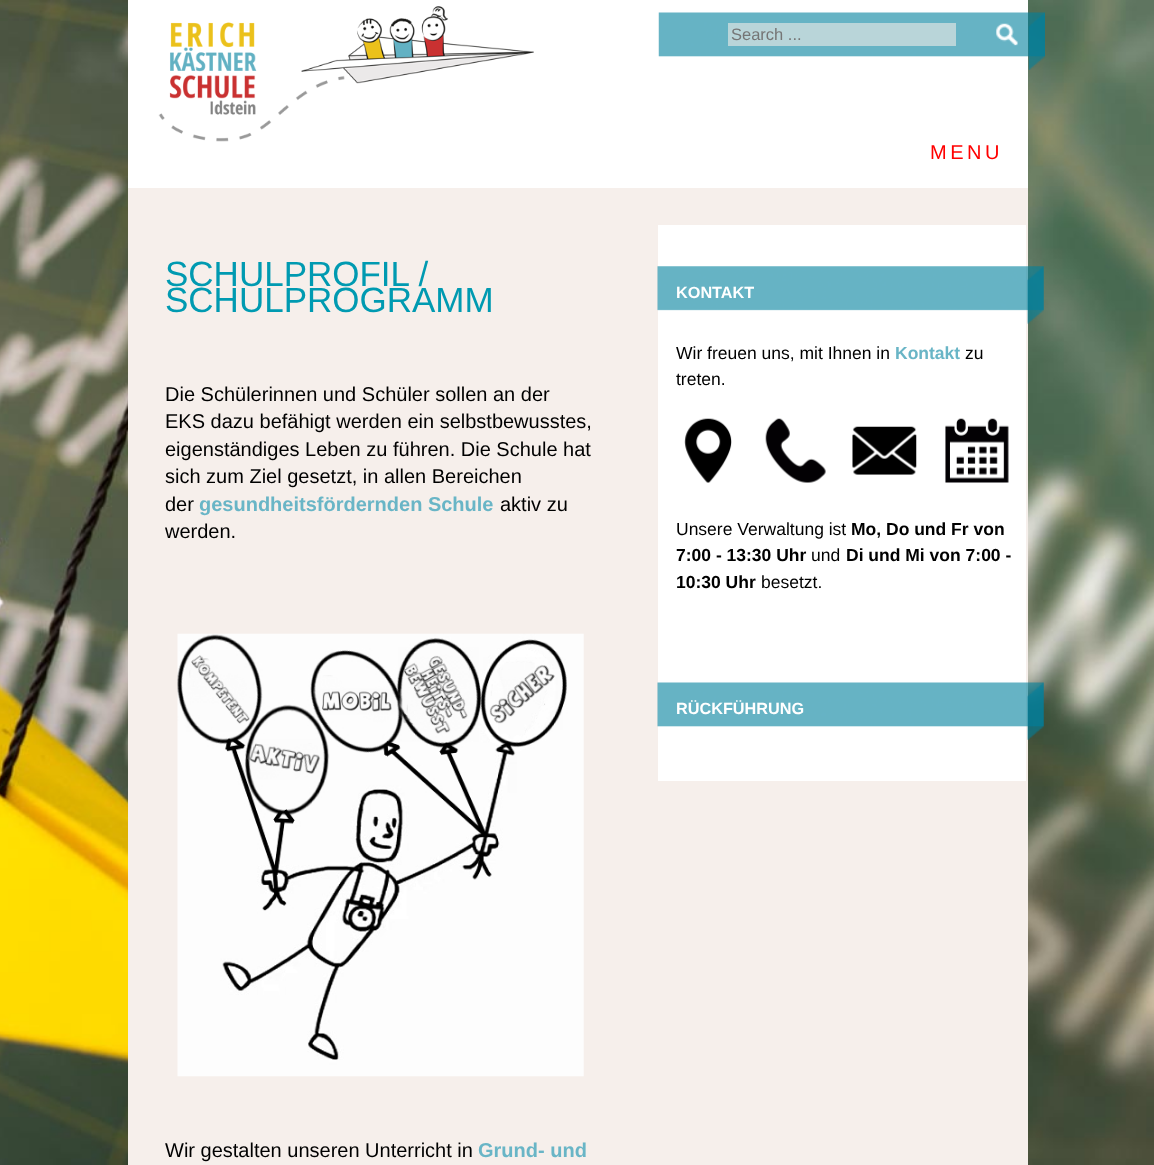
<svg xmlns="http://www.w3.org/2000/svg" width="1154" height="1165">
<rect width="100%" height="100%" fill="#fff"/>
<image x="0" y="0" width="1154" height="1165" href="media/1.png"/>
<rect x="128" width="900" height="188" fill="#fff"/>
<image x="158" y="6" width="376" height="136" href="media/2.png"/>
<image x="658" y="12" width="387" height="58" href="media/3.png"/>
<rect x="728" y="23" width="228" height="23" fill="#b9d5d9"/>
<text x="731" y="40" style="font-family:Liberation Sans;font-size:16.5px;fill:#757575">Search ...</text>
<text x="930" y="159" style="font-family:Liberation Sans;font-size:20px;letter-spacing:3.5px;fill:#f00">MENU</text>
<rect x="128" y="188" width="900" height="977" fill="#f6efeb"/>
<text x="165" y="286" style="font-family:Liberation Sans;font-size:35px;fill:#009ab1">SCHULPROFIL /</text>
<text x="165" y="312" style="font-family:Liberation Sans;font-size:35px;fill:#009ab1">SCHULPROGRAMM</text>
<text x="165" y="401" style="font-family:Liberation Sans;font-size:20px;fill:#000">Die Schülerinnen und Schüler sollen an der</text>
<text x="165" y="428" style="font-family:Liberation Sans;font-size:20px;fill:#000">EKS dazu befähigt werden ein selbstbewusstes,</text>
<text x="165" y="456" style="font-family:Liberation Sans;font-size:20px;fill:#000">eigenständiges Leben zu führen. Die Schule hat</text>
<text x="165" y="483" style="font-family:Liberation Sans;font-size:20px;fill:#000">sich zum Ziel gesetzt, in allen Bereichen</text>
<text x="165" y="511" style="font-family:Liberation Sans;font-size:20px;fill:#000">der</text>
<text x="199" y="511" style="font-family:Liberation Sans;font-size:20px;font-weight:bold;fill:#69b5c6">gesundheitsfördernden Schule</text>
<text x="500" y="511" style="font-family:Liberation Sans;font-size:20px;fill:#000">aktiv zu</text>
<text x="165" y="538" style="font-family:Liberation Sans;font-size:20px;fill:#000">werden.</text>
<image x="177" y="633" width="407" height="444" href="media/4.png"/>
<text x="165" y="1157" style="font-family:Liberation Sans;font-size:20px;fill:#000">Wir gestalten unseren Unterricht in</text>
<text x="478" y="1157" style="font-family:Liberation Sans;font-size:20px;font-weight:bold;fill:#69b5c6">Grund- und</text>
<rect x="658" y="225" width="368" height="556" fill="#fff"/>
<image x="657" y="266" width="387" height="58" href="media/5.png"/>
<text x="676" y="298" style="font-family:Liberation Sans;font-size:16.25px;font-weight:bold;fill:#fff">KONTAKT</text>
<text x="676" y="359" style="font-family:Liberation Sans;font-size:17.5px;fill:#000">Wir freuen uns, mit Ihnen in</text>
<text x="895" y="359" style="font-family:Liberation Sans;font-size:17.5px;font-weight:bold;fill:#69b5c6">Kontakt</text>
<text x="965" y="359" style="font-family:Liberation Sans;font-size:17.5px;fill:#000">zu</text>
<text x="676" y="385" style="font-family:Liberation Sans;font-size:17.5px;fill:#000">treten.</text>
<image x="684" y="418" width="48" height="65" href="media/6.png"/>
<image x="765" y="418" width="61" height="65" href="media/7.png"/>
<image x="852" y="426" width="65" height="49" href="media/8.png"/>
<image x="945" y="418" width="64" height="65" href="media/9.png"/>
<text x="676" y="535" style="font-family:Liberation Sans;font-size:17.5px;fill:#000">Unsere Verwaltung ist</text>
<text x="851" y="535" style="font-family:Liberation Sans;font-size:17.5px;font-weight:bold;fill:#000">Mo, Do und Fr von</text>
<text x="676" y="561" style="font-family:Liberation Sans;font-size:17.5px;font-weight:bold;fill:#000">7:00 - 13:30 Uhr</text>
<text x="811" y="561" style="font-family:Liberation Sans;font-size:17.5px;fill:#000">und</text>
<text x="846" y="561" style="font-family:Liberation Sans;font-size:17.5px;font-weight:bold;fill:#000">Di und Mi von 7:00 -</text>
<text x="676" y="588" style="font-family:Liberation Sans;font-size:17.5px;font-weight:bold;fill:#000">10:30 Uhr</text>
<text x="761" y="588" style="font-family:Liberation Sans;font-size:17.5px;fill:#000">besetzt.</text>
<image x="657" y="682" width="387" height="58" href="media/10.png"/>
<text x="676" y="714" style="font-family:Liberation Sans;font-size:16.25px;font-weight:bold;fill:#fff">RÜCKFÜHRUNG</text>
</svg>
